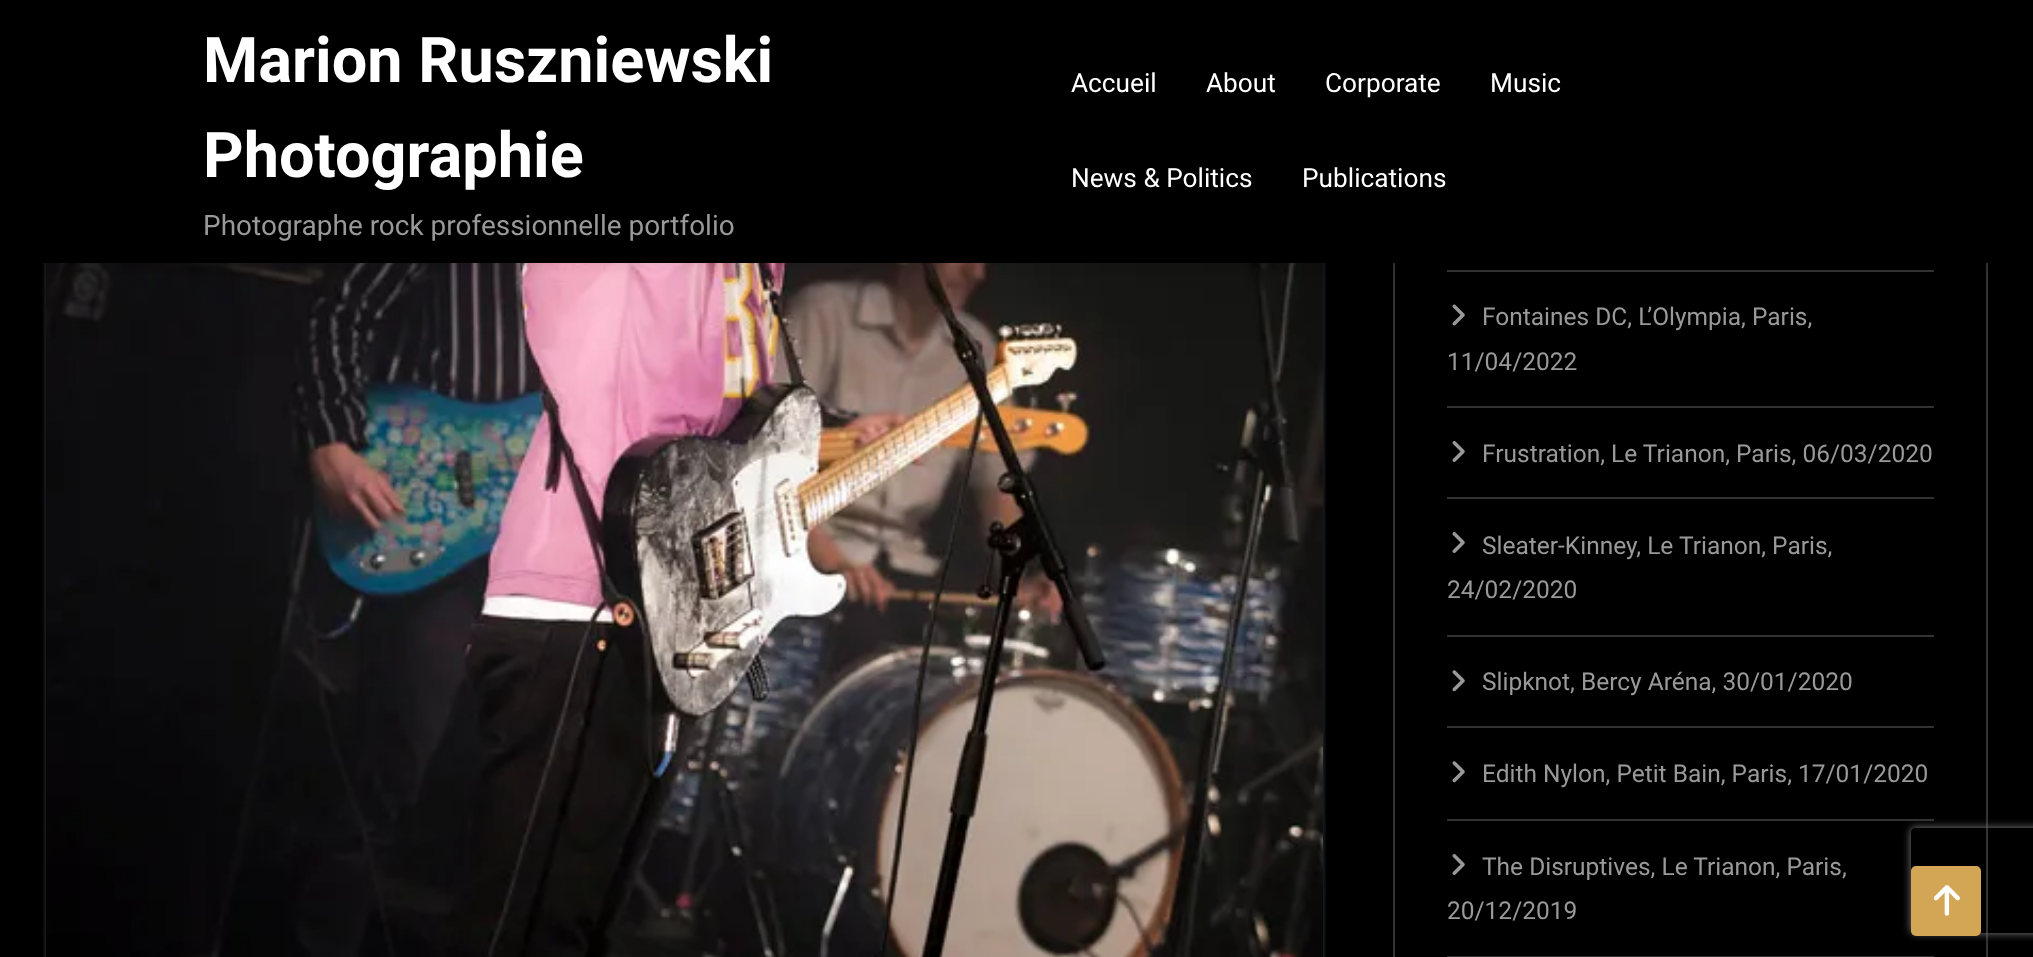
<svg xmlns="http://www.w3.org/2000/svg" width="2033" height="957">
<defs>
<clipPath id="clip1"><path d="M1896 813h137v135h-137zm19 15h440c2 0 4 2 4 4v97c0 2-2 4-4 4h-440c-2 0-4-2-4-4v-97c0-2 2-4 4-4z" clip-rule="evenodd"/></clipPath>
</defs>
<rect width="100%" height="100%" fill="#000"/>
<rect x="44" y="-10" width="1281" height="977" rx="7" fill="#181a1f" filter="blur(1px)"/>
<image x="46" y="263" width="1277" height="694" href="media/1.png"/>
<rect x="1394" y="-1" width="593" height="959" fill="none" stroke="#323232" stroke-width="2"/>
<rect x="1447" y="270" width="487" height="2" fill="#323232"/>
<rect y="5" width="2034" height="263" fill="#0000000d" filter="blur(4.5px)"/>
<rect x="43" width="1945" height="263" fill="#000"/>
<text x="203" y="82" style="font-family:Roboto;font-size:63px;font-weight:bold;fill:#fff">Marion Ruszniewski</text>
<text x="203" y="177" style="font-family:Roboto;font-size:63px;font-weight:bold;fill:#fff">Photographie</text>
<text x="203" y="235" style="font-family:Roboto;font-size:28px;fill:#999">Photographe rock professionnelle portfolio</text>
<text x="1071" y="92" style="font-family:Roboto;font-size:26.25px;fill:#fff">Accueil</text>
<text x="1206" y="92" style="font-family:Roboto;font-size:26.25px;fill:#fff">About</text>
<text x="1325" y="92" style="font-family:Roboto;font-size:26.25px;fill:#fff">Corporate</text>
<text x="1490" y="92" style="font-family:Roboto;font-size:26.25px;fill:#fff">Music</text>
<text x="1071" y="187" style="font-family:Roboto;font-size:26.25px;fill:#fff">News &amp; Politics</text>
<text x="1302" y="187" style="font-family:Roboto;font-size:26.25px;fill:#fff">Publications</text>
<rect x="1447" y="406" width="487" height="2" fill="#323232"/>
<image x="1452" y="304" width="13" height="22" href="media/2.png"/>
<text x="1482" y="325" style="font-family:Roboto;font-size:24.5px;fill:#999">Fontaines DC, L’Olympia, Paris,</text>
<text x="1447" y="370" style="font-family:Roboto;font-size:24.5px;fill:#999">11/04/2022</text>
<rect x="1447" y="497" width="487" height="2" fill="#323232"/>
<image x="1452" y="441" width="13" height="21" href="media/3.png"/>
<text x="1482" y="462" style="font-family:Roboto;font-size:24.5px;fill:#999">Frustration, Le Trianon, Paris, 06/03/2020</text>
<rect x="1447" y="635" width="487" height="2" fill="#323232"/>
<image x="1452" y="532" width="13" height="21" href="media/3.png"/>
<text x="1482" y="554" style="font-family:Roboto;font-size:24.5px;fill:#999">Sleater-Kinney, Le Trianon, Paris,</text>
<text x="1447" y="598" style="font-family:Roboto;font-size:24.5px;fill:#999">24/02/2020</text>
<rect x="1447" y="726" width="487" height="2" fill="#323232"/>
<image x="1452" y="670" width="13" height="22" href="media/4.png"/>
<text x="1482" y="690" style="font-family:Roboto;font-size:24.5px;fill:#999">Slipknot, Bercy Aréna, 30/01/2020</text>
<rect x="1447" y="819" width="487" height="2" fill="#323232"/>
<image x="1452" y="761" width="13" height="22" href="media/4.png"/>
<text x="1482" y="782" style="font-family:Roboto;font-size:24.5px;fill:#999">Edith Nylon, Petit Bain, Paris, 17/01/2020</text>
<rect x="1447" y="956" width="487" height="1" fill="#323232"/>
<image x="1452" y="854" width="13" height="21" href="media/3.png"/>
<text x="1482" y="875" style="font-family:Roboto;font-size:24.5px;fill:#999">The Disruptives, Le Trianon, Paris,</text>
<text x="1447" y="919" style="font-family:Roboto;font-size:24.5px;fill:#999">20/12/2019</text>
<g clip-path="url(#clip1)">
<rect x="1911" y="828" width="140" height="105" rx="4" fill="#808080" filter="blur(4.5px)"/>
</g>
<rect x="1911" y="866" width="70" height="70" rx="5" fill="#d3a656"/>
<image x="1933" y="885" width="27" height="31" href="media/5.png"/>
</svg>
